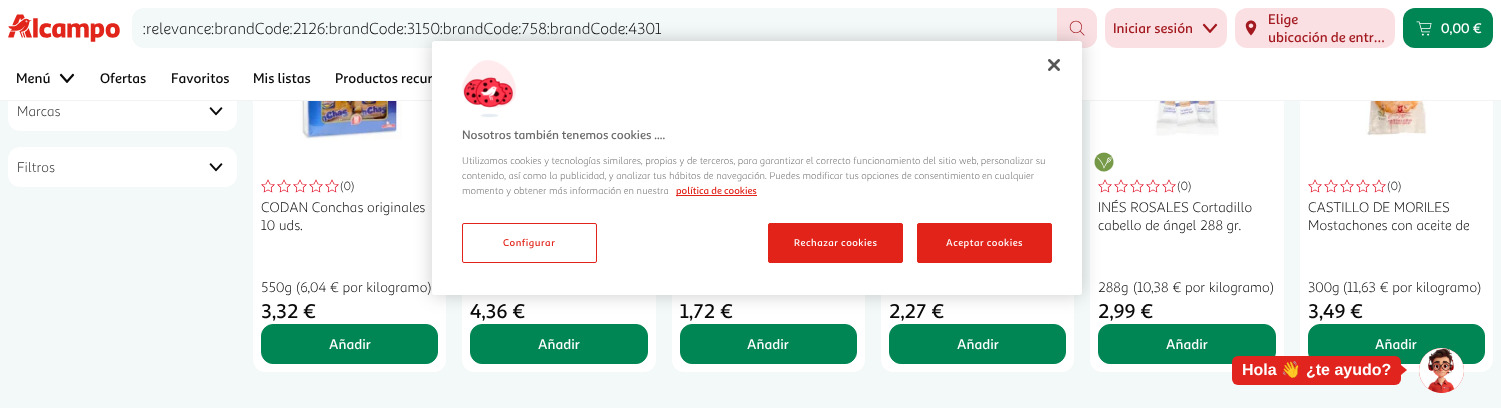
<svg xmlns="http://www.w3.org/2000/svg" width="1501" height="408">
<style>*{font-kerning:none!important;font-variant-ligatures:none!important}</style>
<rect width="100%" height="100%" fill="#f3f8f8"/>
<rect x="8" y="91" width="229" height="40" rx="12" fill="#fff"/>
<rect x="253" y="-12" width="193" height="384" rx="12" fill="#fff"/>
<rect x="462" y="-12" width="194" height="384" rx="12" fill="#fff"/>
<rect x="672" y="-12" width="193" height="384" rx="12" fill="#fff"/>
<rect x="881" y="-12" width="193" height="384" rx="12" fill="#fff"/>
<rect x="1090" y="-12" width="194" height="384" rx="12" fill="#fff"/>
<rect x="1300" y="-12" width="193" height="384" rx="12" fill="#fff"/>
<rect y="100" width="1501" height="1" fill="#f2f3f4"/>
<rect width="1501" height="100" fill="#fff"/>
<image x="8" y="14" width="112" height="28" href="media/1.png"/>
<path d="M144 8h913v40h-913c-6.5 0-12-5.5-12-12v-16c0-6.5 5.5-12 12-12z" fill="#f3f8f8"/>
<text x="143" y="34" style="font-family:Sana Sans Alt;font-size:16px;fill:#0a0a0a">:relevance:brandCode:2126:brandCode:3150:brandCode:758:brandCode:4301</text>
<path d="M1057 8h28c6.5 0 12 5.5 12 12v16c0 6.5-5.5 12-12 12h-28z" fill="#fbe0e3"/>
<image x="1069" y="20" width="16" height="16" href="media/2.png"/>
<rect x="1105" y="8" width="122" height="40" rx="12" fill="#fbe0e3"/>
<text x="1113" y="33" style="font-family:Sana Sans Alt;font-size:14px;font-weight:500;fill:#a21a20">Iniciar sesión</text>
<image x="1202" y="23" width="16" height="10" href="media/3.png"/>
<rect x="1235" y="8" width="160" height="40" rx="12" fill="#fbe0e3"/>
<image x="1245" y="20" width="12" height="16" href="media/4.png"/>
<text x="1268" y="24" style="font-family:Sana Sans Alt;font-size:14px;font-weight:500;fill:#a21a20">Elige</text>
<text x="1268" y="42" style="font-family:Sana Sans Alt;font-size:14px;font-weight:500;fill:#a21a20">ubicación de entr…</text>
<rect x="1403" y="8" width="90" height="40" rx="12" fill="#008554"/>
<image x="1416" y="21" width="16" height="15" href="media/5.png"/>
<text x="1441" y="33" style="font-family:Sana Sans Alt;font-size:14px;font-weight:500;fill:#fff">0,00 €</text>
<text x="16" y="83" style="font-family:Sana Sans Alt;font-size:14px;font-weight:500;fill:#0a0a0a">Menú</text>
<image x="59" y="73" width="16" height="10" href="media/6.png"/>
<text x="100" y="83" style="font-family:Sana Sans Alt;font-size:14px;font-weight:500;fill:#0a0a0a">Ofertas</text>
<text x="171" y="83" style="font-family:Sana Sans Alt;font-size:14px;font-weight:500;fill:#0a0a0a">Favoritos</text>
<text x="253" y="83" style="font-family:Sana Sans Alt;font-size:14px;font-weight:500;fill:#0a0a0a">Mis listas</text>
<text x="335" y="83" style="font-family:Sana Sans Alt;font-size:14px;font-weight:500;fill:#0a0a0a">Productos recur</text>
<text x="17" y="116" style="font-family:Sana Sans Alt;font-size:14px;fill:#2e2e2e">Marcas</text>
<image x="209" y="107" width="14" height="9" href="media/7.png"/>
<rect x="8" y="147" width="229" height="40" rx="12" fill="#fff"/>
<text x="17" y="172" style="font-family:Sana Sans Alt;font-size:14px;fill:#2e2e2e">Filtros</text>
<image x="209" y="163" width="14" height="9" href="media/7.png"/>
<image x="300" y="101" width="102" height="39" href="media/8.png"/>
<image x="261" y="179" width="14" height="14" href="media/9.png"/>
<image x="277" y="179" width="14" height="14" href="media/9.png"/>
<image x="293" y="179" width="14" height="14" href="media/9.png"/>
<image x="309" y="179" width="14" height="14" href="media/9.png"/>
<image x="325" y="179" width="14" height="14" href="media/9.png"/>
<text x="340" y="190" style="font-family:Sana Sans Alt;font-size:12px;fill:#0a0a0a">(0)</text>
<text x="261" y="212" style="font-family:Sana Sans Alt;font-size:14px;fill:#0a0a0a">CODAN Conchas originales</text>
<text x="261" y="230" style="font-family:Sana Sans Alt;font-size:14px;fill:#0a0a0a">10 uds.</text>
<text x="261" y="292" style="font-family:Sana Sans Alt;font-size:14px;fill:#0a0a0a">550g</text>
<text x="296" y="292" style="font-family:Sana Sans Alt;font-size:14px;fill:#0a0a0a">(6,04 € por kilogramo)</text>
<text x="261" y="318" style="font-family:Sana Sans Alt;font-size:20px;font-weight:500;fill:#0a0a0a">3,32 €</text>
<rect x="261.5" y="324.5" width="176" height="39" rx="11.5" fill="#008554" stroke="#008554"/>
<text x="329" y="349" style="font-family:Sana Sans Alt;font-size:14px;font-weight:500;fill:#fff">Añadir</text>
<text x="470" y="318" style="font-family:Sana Sans Alt;font-size:20px;font-weight:500;fill:#0a0a0a">4,36 €</text>
<rect x="470.5" y="324.5" width="177" height="39" rx="11.5" fill="#008554" stroke="#008554"/>
<text x="538" y="349" style="font-family:Sana Sans Alt;font-size:14px;font-weight:500;fill:#fff">Añadir</text>
<text x="680" y="318" style="font-family:Sana Sans Alt;font-size:20px;font-weight:500;fill:#0a0a0a">1,72 €</text>
<rect x="680.5" y="324.5" width="176" height="39" rx="11.5" fill="#008554" stroke="#008554"/>
<text x="747" y="349" style="font-family:Sana Sans Alt;font-size:14px;font-weight:500;fill:#fff">Añadir</text>
<text x="889" y="318" style="font-family:Sana Sans Alt;font-size:20px;font-weight:500;fill:#0a0a0a">2,27 €</text>
<rect x="889.5" y="324.5" width="176" height="39" rx="11.5" fill="#008554" stroke="#008554"/>
<text x="957" y="349" style="font-family:Sana Sans Alt;font-size:14px;font-weight:500;fill:#fff">Añadir</text>
<image x="1154" y="101" width="65" height="35" href="media/10.png"/>
<image x="1094" y="152" width="20" height="20" href="media/11.png"/>
<image x="1098" y="179" width="14" height="14" href="media/9.png"/>
<image x="1114" y="179" width="14" height="14" href="media/9.png"/>
<image x="1130" y="179" width="14" height="14" href="media/9.png"/>
<image x="1146" y="179" width="14" height="14" href="media/9.png"/>
<image x="1162" y="179" width="14" height="14" href="media/9.png"/>
<text x="1177" y="190" style="font-family:Sana Sans Alt;font-size:12px;fill:#0a0a0a">(0)</text>
<text x="1098" y="212" style="font-family:Sana Sans Alt;font-size:14px;fill:#0a0a0a">INÉS ROSALES Cortadillo</text>
<text x="1098" y="230" style="font-family:Sana Sans Alt;font-size:14px;fill:#0a0a0a">cabello de ángel 288 gr.</text>
<text x="1098" y="292" style="font-family:Sana Sans Alt;font-size:14px;fill:#0a0a0a">288g</text>
<text x="1133" y="292" style="font-family:Sana Sans Alt;font-size:14px;fill:#0a0a0a">(10,38 € por kilogramo)</text>
<text x="1098" y="318" style="font-family:Sana Sans Alt;font-size:20px;font-weight:500;fill:#0a0a0a">2,99 €</text>
<rect x="1098.5" y="324.5" width="177" height="39" rx="11.5" fill="#008554" stroke="#008554"/>
<text x="1166" y="349" style="font-family:Sana Sans Alt;font-size:14px;font-weight:500;fill:#fff">Añadir</text>
<image x="1365" y="101" width="62" height="35" href="media/12.png"/>
<image x="1308" y="179" width="14" height="14" href="media/9.png"/>
<image x="1324" y="179" width="14" height="14" href="media/9.png"/>
<image x="1340" y="179" width="14" height="14" href="media/9.png"/>
<image x="1356" y="179" width="14" height="14" href="media/9.png"/>
<image x="1372" y="179" width="14" height="14" href="media/9.png"/>
<text x="1387" y="190" style="font-family:Sana Sans Alt;font-size:12px;fill:#0a0a0a">(0)</text>
<text x="1308" y="212" style="font-family:Sana Sans Alt;font-size:14px;fill:#0a0a0a">CASTILLO DE MORILES</text>
<text x="1308" y="230" style="font-family:Sana Sans Alt;font-size:14px;fill:#0a0a0a">Mostachones con aceite de</text>
<text x="1308" y="292" style="font-family:Sana Sans Alt;font-size:14px;fill:#0a0a0a">300g</text>
<text x="1343" y="292" style="font-family:Sana Sans Alt;font-size:14px;fill:#0a0a0a">(11,63 € por kilogramo)</text>
<text x="1308" y="318" style="font-family:Sana Sans Alt;font-size:20px;font-weight:500;fill:#0a0a0a">3,49 €</text>
<rect x="1308.5" y="324.5" width="176" height="39" rx="11.5" fill="#008554" stroke="#008554"/>
<text x="1375" y="349" style="font-family:Sana Sans Alt;font-size:14px;font-weight:500;fill:#fff">Añadir</text>
<rect x="432" y="41" width="650" height="254" rx="2.5" fill="#00000033" filter="blur(9px)"/>
<rect x="432" y="41" width="650" height="254" rx="2.5" fill="#fff"/>
<image x="1048" y="59" width="12" height="12" href="media/13.png"/>
<image x="462" y="60" width="54" height="58" href="media/14.png"/>
<text x="462" y="139" style="font-family:Sana Sans Alt;font-size:12.25px;font-weight:500;fill:#696969">Nosotros también tenemos cookies ....</text>
<text x="462" y="164" style="font-family:Sana Sans Alt;font-size:9.95px;fill:#696969">Utilizamos cookies y tecnologías similares, propias y de terceros, para garantizar</text>
<text x="806" y="164" style="font-family:Sana Sans Alt;font-size:9.95px;fill:#696969">el correcto funcionamiento del sitio web, personalizar su</text>
<text x="462" y="179" style="font-family:Sana Sans Alt;font-size:9.95px;fill:#696969">contenido, así como la publicidad, y analizar tus hábitos de navegación. Puedes modificar tus opciones de consentimiento</text>
<text x="982" y="179" style="font-family:Sana Sans Alt;font-size:9.95px;fill:#696969">en cualquier</text>
<text x="462" y="194" style="font-family:Sana Sans Alt;font-size:9.95px;fill:#696969">momento y obtener más información en nuestra</text>
<rect x="676" y="195" width="81" height="1" fill="#e2231a"/>
<text x="676" y="194" style="font-family:Sana Sans Alt;font-size:9.95px;font-weight:500;fill:#e2231a">política de cookies</text>
<rect x="462.5" y="223.5" width="134" height="39" rx="1.5" fill="none" stroke="#e2231a"/>
<text x="503" y="246" style="font-family:Sana Sans Alt;font-size:9.95px;font-weight:500;letter-spacing:0.5px;fill:#e2231a">Configurar</text>
<rect x="768.5" y="223.5" width="134" height="39" rx="1.5" fill="#e2231a" stroke="#e2231a"/>
<text x="794" y="246" style="font-family:Sana Sans Alt;font-size:9.95px;font-weight:500;letter-spacing:0.5px;fill:#fff">Rechazar cookies</text>
<rect x="917.5" y="223.5" width="134" height="39" rx="1.5" fill="#e2231a" stroke="#e2231a"/>
<text x="946" y="246" style="font-family:Sana Sans Alt;font-size:9.95px;font-weight:500;letter-spacing:0.5px;fill:#fff">Aceptar cookies</text>
<rect x="1232" y="356" width="169" height="29" rx="6" fill="#e1241d"/>
<text x="1242" y="375" style="font-family:Liberation Sans;font-size:16px;font-weight:bold;fill:#fff">Hola</text>
<text x="1281" y="375" style="font-family:Noto Color Emoji;font-size:16px;font-weight:bold;fill:#fff">👋</text>
<text x="1306" y="375" style="font-family:Liberation Sans;font-size:16px;font-weight:bold;fill:#fff">¿te ayudo?</text>
<path d="M1401 375v-10l6 5z" fill="#e1241d"/>
<circle cx="1441.5" cy="370.5" r="22.5" fill="#e1241d"/>
<image x="1419" y="348" width="45" height="45" href="media/15.png"/>
</svg>
